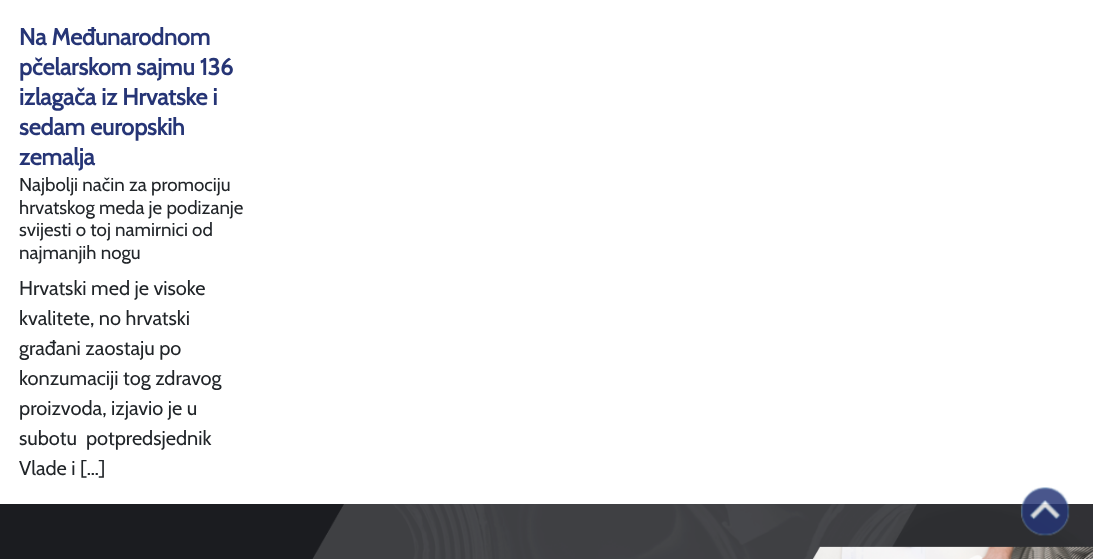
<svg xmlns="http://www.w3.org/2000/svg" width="1093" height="559">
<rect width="100%" height="100%" fill="#fff"/>
<text x="19" y="45" style="font-family:Cabin;font-size:23.25px;font-weight:bold;fill:#263576">Na Međunarodnom</text>
<text x="19" y="75" style="font-family:Cabin;font-size:23.25px;font-weight:bold;fill:#263576">pčelarskom sajmu 136</text>
<text x="19" y="105" style="font-family:Cabin;font-size:23.25px;font-weight:bold;fill:#263576">izlagača iz Hrvatske i</text>
<text x="19" y="135" style="font-family:Cabin;font-size:23.25px;font-weight:bold;fill:#263576">sedam europskih</text>
<text x="19" y="165" style="font-family:Cabin;font-size:23.25px;font-weight:bold;fill:#263576">zemalja</text>
<text x="19" y="191" style="font-family:Cabin;font-size:18.75px;fill:#212529">Najbolji način za promociju</text>
<text x="19" y="214" style="font-family:Cabin;font-size:18.75px;fill:#212529">hrvatskog meda je podizanje</text>
<text x="19" y="236" style="font-family:Cabin;font-size:18.75px;fill:#212529">svijesti o toj namirnici od</text>
<text x="19" y="259" style="font-family:Cabin;font-size:18.75px;fill:#212529">najmanjih nogu</text>
<text x="19" y="295" style="font-family:Cabin;font-size:20px;fill:#212529">Hrvatski med je visoke</text>
<text x="19" y="325" style="font-family:Cabin;font-size:20px;fill:#212529">kvalitete, no hrvatski</text>
<text x="19" y="355" style="font-family:Cabin;font-size:20px;fill:#212529">građani zaostaju po</text>
<text x="19" y="385" style="font-family:Cabin;font-size:20px;fill:#212529">konzumaciji tog zdravog</text>
<text x="19" y="415" style="font-family:Cabin;font-size:20px;fill:#212529">proizvoda, izjavio je u</text>
<text x="19" y="445" style="font-family:Cabin;font-size:20px;fill:#212529" xml:space="preserve">subotu  potpredsjednik</text>
<text x="19" y="475" style="font-family:Cabin;font-size:20px;fill:#212529">Vlade i […]</text>
<image x="0" y="504" width="1093" height="55" href="media/2.png"/>
<image x="1021" y="487" width="49" height="49" href="media/1.png"/>
</svg>
